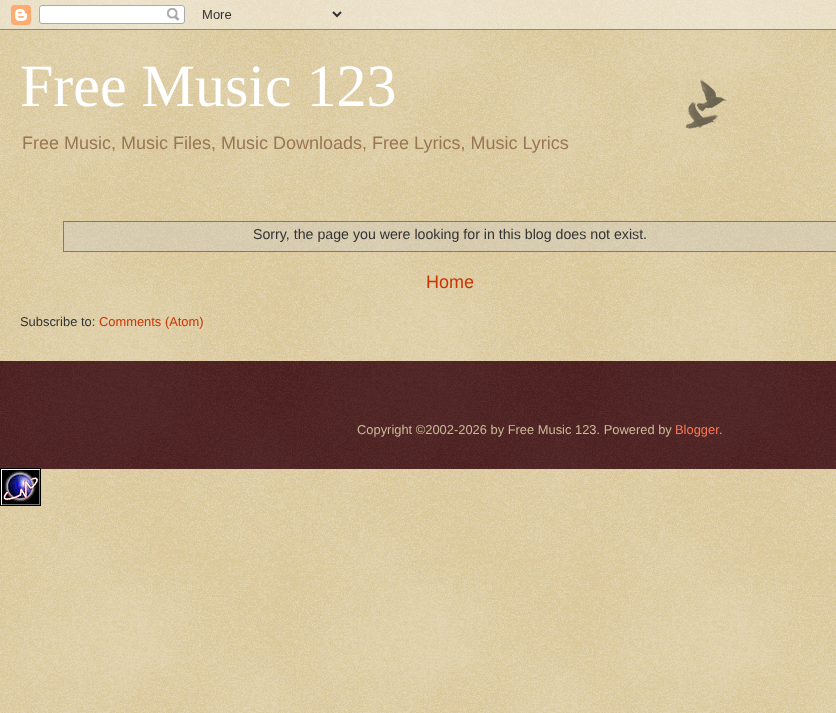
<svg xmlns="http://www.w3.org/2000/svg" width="836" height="713">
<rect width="100%" height="100%" fill="#c0a154"/>
<image x="0" y="0" width="836" height="713" href="media/1.png"/>
<image x="0" y="0" width="836" height="30" href="media/2.png"/>
<text x="20" y="106" style="font-family:Liberation Serif;font-size:60px;fill:#fff">Free Music 123</text>
<text x="22" y="149" style="font-family:Liberation Sans;font-size:18px;fill:#975">Free Music, Music Files, Music Downloads, Free Lyrics, Music Lyrics</text>
<rect x="63.5" y="221.5" width="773" height="30" fill="none" stroke="#00000066"/>
<rect x="64" y="222" width="772" height="29" fill="#cccccc52"/>
<text x="253" y="239" style="font-family:Liberation Sans;font-size:14.2px;fill:#333">Sorry, the page you were looking for in this blog does not exist.</text>
<text x="426" y="288" style="font-family:Liberation Sans;font-size:18px;fill:#c30">Home</text>
<text x="20" y="326" style="font-family:Liberation Sans;font-size:12.9px;fill:#333">Subscribe to:</text>
<text x="99" y="326" style="font-family:Liberation Sans;font-size:12.9px;fill:#c30">Comments (Atom)</text>
<rect y="361" width="836" height="108" fill="#300"/>
<image x="0" y="361" width="836" height="108" href="media/3.png"/>
<text x="357" y="434" style="font-family:Liberation Sans;font-size:12.9px;fill:#cb9">Copyright ©2002-2026 by Free Music 123. Powered by</text>
<text x="675" y="434" style="font-family:Liberation Sans;font-size:12.9px;fill:#f75">Blogger</text>
<text x="719" y="434" style="font-family:Liberation Sans;font-size:12.9px;fill:#cb9">.</text>
<image x="685" y="79" width="42" height="50" href="media/4.png"/>
<image x="0" y="468" width="41" height="38" href="media/5.png"/>
</svg>
